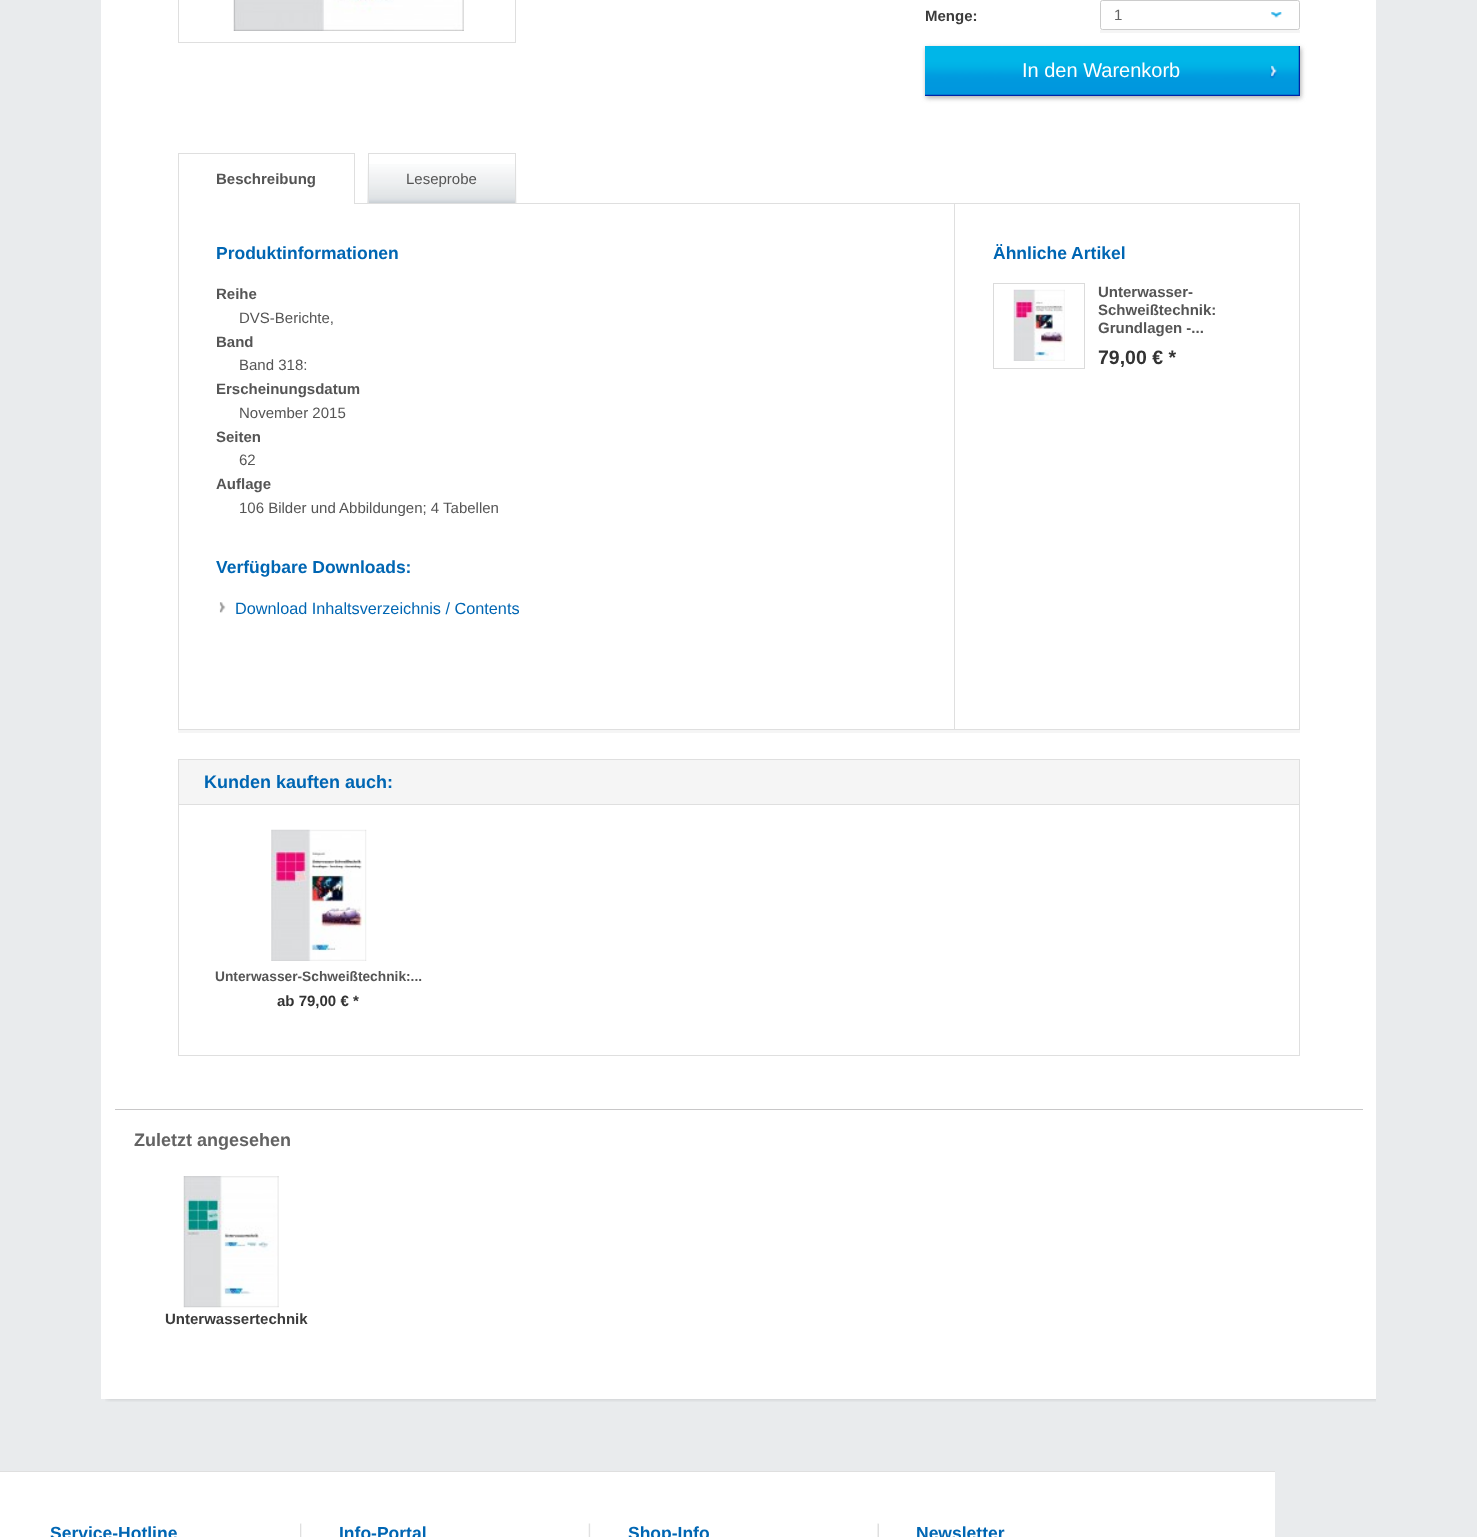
<svg xmlns="http://www.w3.org/2000/svg" width="1477" height="1537">
<rect width="100%" height="100%" fill="#e9ebed"/>
<rect x="101" width="1275" height="1399" fill="#fff"/>
<rect x="178.5" y="-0.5" width="337" height="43" fill="none" stroke="#dfdfdf"/>
<image x="233" y="0" width="231" height="31" href="media/1.png"/>
<text x="925" y="21" style="font-family:Liberation Sans;font-size:15px;font-weight:bold;fill:#3b3b3b">Menge:</text>
<rect x="1100" y="30" width="200" height="3" fill="#f5f5f5"/>
<rect x="1100.5" y="0.5" width="199" height="29" rx="2" fill="none" stroke="#ccc"/>
<image x="1271" y="12" width="11" height="6" href="media/2.png"/>
<text x="1114" y="20" style="font-family:Liberation Sans;font-size:15px;fill:#636363">1</text>
<rect x="926" y="48" width="375" height="50" fill="#adadad" filter="blur(2.5px)"/>
<image x="925" y="46" width="375" height="50" href="media/3.png"/>
<text x="1022" y="77" style="font-family:Liberation Sans;font-size:20px;fill:#fff">In den Warenkorb</text>
<image x="367" y="164" width="150" height="39" href="media/4.png"/>
<rect x="368" y="153" width="148" height="1" fill="#dfdfdf"/>
<rect x="515" y="153" width="1" height="52" fill="#dfdfdf"/>
<rect x="368" y="153" width="1" height="52" fill="#dfdfdf"/>
<rect x="368" y="204" width="148" height="1" fill="#fff"/>
<rect x="178.5" y="203.5" width="1121" height="526" fill="none" stroke="#dfdfdf"/>
<rect x="179" y="203" width="175" height="1" fill="#fff"/>
<rect x="178" y="153" width="177" height="1" fill="#dfdfdf"/>
<rect x="354" y="153" width="1" height="52" fill="#dfdfdf"/>
<rect x="178" y="204" width="177" height="1" fill="#fff"/>
<rect x="178" y="153" width="1" height="52" fill="#dfdfdf"/>
<text x="216" y="184" style="font-family:Liberation Sans;font-size:15px;font-weight:bold;fill:#555">Beschreibung</text>
<text x="406" y="184" style="font-family:Liberation Sans;font-size:15px;fill:#555">Leseprobe</text>
<text x="216" y="259" style="font-family:Liberation Sans;font-size:17.5px;font-weight:bold;fill:#0066b3">Produktinformationen</text>
<text x="216" y="299" style="font-family:Liberation Sans;font-size:15px;font-weight:bold;fill:#555">Reihe</text>
<text x="239" y="323" style="font-family:Liberation Sans;font-size:15px;fill:#555">DVS-Berichte,</text>
<text x="216" y="347" style="font-family:Liberation Sans;font-size:15px;font-weight:bold;fill:#555">Band</text>
<text x="239" y="370" style="font-family:Liberation Sans;font-size:15px;fill:#555">Band 318:</text>
<text x="216" y="394" style="font-family:Liberation Sans;font-size:15px;font-weight:bold;fill:#555">Erscheinungsdatum</text>
<text x="239" y="418" style="font-family:Liberation Sans;font-size:15px;fill:#555">November 2015</text>
<text x="216" y="442" style="font-family:Liberation Sans;font-size:15px;font-weight:bold;fill:#555">Seiten</text>
<text x="239" y="465" style="font-family:Liberation Sans;font-size:15px;fill:#555">62</text>
<text x="216" y="489" style="font-family:Liberation Sans;font-size:15px;font-weight:bold;fill:#555">Auflage</text>
<text x="239" y="513" style="font-family:Liberation Sans;font-size:15px;fill:#555">106 Bilder und Abbildungen; 4 Tabellen</text>
<text x="216" y="573" style="font-family:Liberation Sans;font-size:17.5px;font-weight:bold;fill:#0066b3">Verfügbare Downloads:</text>
<image x="219" y="602" width="7" height="11" href="media/5.png"/>
<text x="235" y="614" style="font-family:Liberation Sans;font-size:16.25px;fill:#0066b3">Download Inhaltsverzeichnis / Contents</text>
<rect x="954" y="204" width="1" height="525" fill="#dfdfdf"/>
<text x="993" y="259" style="font-family:Liberation Sans;font-size:17.5px;font-weight:bold;fill:#0066b3">Ähnliche Artikel</text>
<image x="1013" y="289" width="52" height="72" href="media/6.png"/>
<rect x="993.5" y="283.5" width="91" height="85" fill="none" stroke="#dbdbdb"/>
<text x="1098" y="297" style="font-family:Liberation Sans;font-size:15px;font-weight:bold;fill:#555">Unterwasser-</text>
<text x="1098" y="315" style="font-family:Liberation Sans;font-size:15px;font-weight:bold;fill:#555">Schweißtechnik:</text>
<text x="1098" y="333" style="font-family:Liberation Sans;font-size:15px;font-weight:bold;fill:#555">Grundlagen -...</text>
<text x="1098" y="364" style="font-family:Liberation Sans;font-size:19.5px;font-weight:bold;fill:#333">79,00 € *</text>
<rect x="178" y="730" width="1122" height="3" fill="#f5f5f5"/>
<rect x="178.5" y="759.5" width="1121" height="296" fill="none" stroke="#dfdfdf"/>
<rect x="179" y="760" width="1120" height="44" fill="#f5f5f5"/>
<rect x="179" y="804" width="1120" height="1" fill="#dfdfdf"/>
<text x="204" y="788" style="font-family:Liberation Sans;font-size:18px;font-weight:bold;fill:#0066b3">Kunden kauften auch:</text>
<image x="271" y="829" width="96" height="132" href="media/7.png"/>
<text x="215" y="981" style="font-family:Liberation Sans;font-size:13.75px;font-weight:bold;fill:#555">Unterwasser-Schweißtechnik:...</text>
<text x="277" y="1006" style="font-family:Liberation Sans;font-size:15px;font-weight:bold;fill:#333">ab 79,00 € *</text>
<rect x="115" y="1109" width="1248" height="1" fill="#c8c7c8"/>
<text x="134" y="1146" style="font-family:Liberation Sans;font-size:18px;font-weight:bold;fill:#636363">Zuletzt angesehen</text>
<image x="183" y="1176" width="96" height="132" href="media/8.png"/>
<text x="165" y="1324" style="font-family:Liberation Sans;font-size:15px;font-weight:bold;fill:#3b3b3b">Unterwassertechnik</text>
<image x="105" y="1399" width="1271" height="3" href="media/9.png"/>
<rect y="1472" width="1275" height="65" fill="#fff"/>
<rect y="1471" width="1275" height="1" fill="#dfdfdf"/>
<image x="300" y="1523" width="579" height="14" href="media/10.png"/>
<rect x="300" y="1524" width="1" height="13" fill="#dfdfdf"/>
<text x="50" y="1539" style="font-family:Liberation Sans;font-size:17.5px;font-weight:bold;fill:#0066b3">Service-Hotline</text>
<text x="339" y="1539" style="font-family:Liberation Sans;font-size:17.5px;font-weight:bold;fill:#0066b3">Info-Portal</text>
<rect x="878" y="1524" width="1" height="13" fill="#dfdfdf"/>
<text x="628" y="1539" style="font-family:Liberation Sans;font-size:17.5px;font-weight:bold;fill:#0066b3">Shop-Info</text>
<text x="916" y="1539" style="font-family:Liberation Sans;font-size:17.5px;font-weight:bold;fill:#0066b3">Newsletter</text>
</svg>
